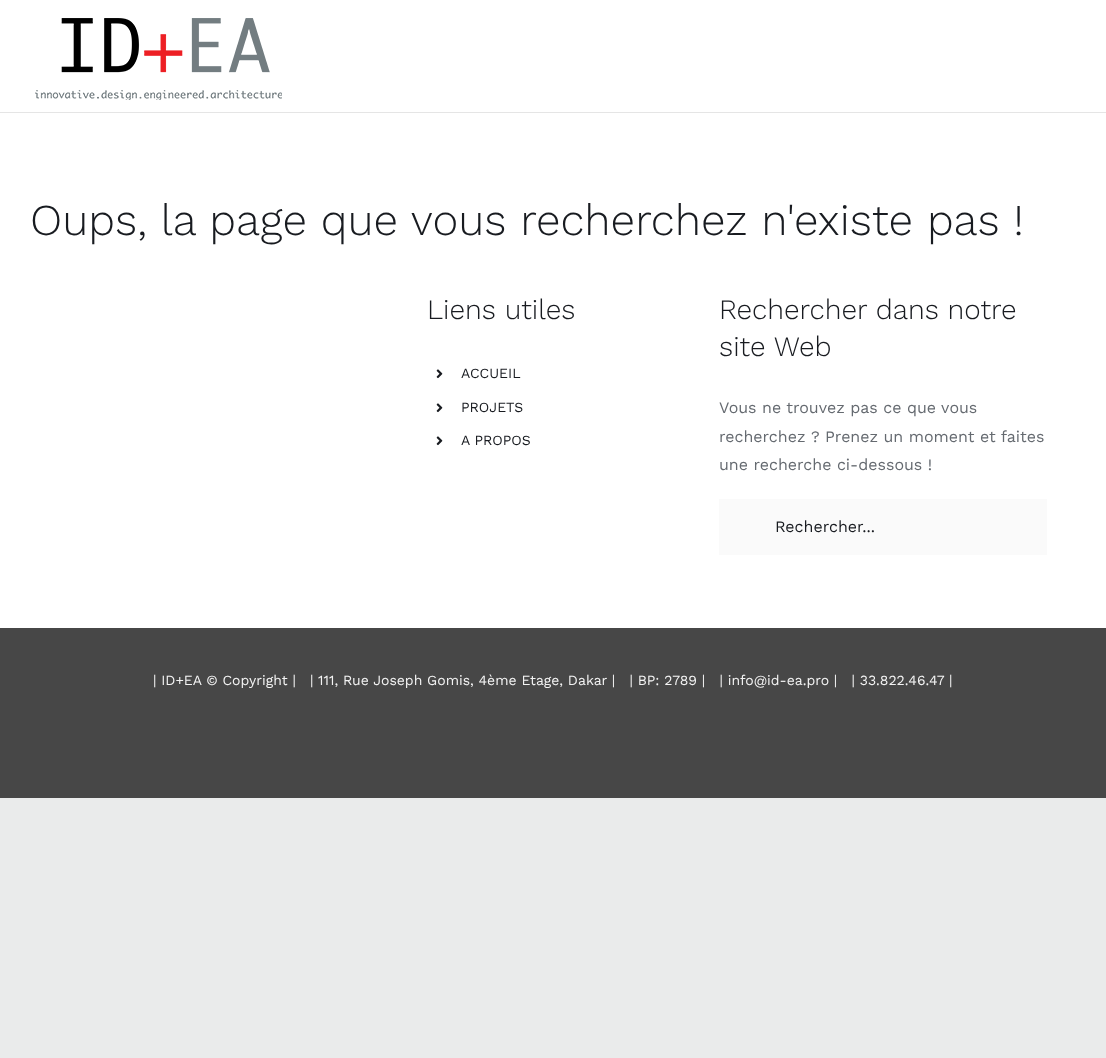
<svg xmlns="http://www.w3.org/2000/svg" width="1106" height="1058">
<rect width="100%" height="100%" fill="#eaebeb"/>
<rect width="1106" height="628" fill="#fff"/>
<rect y="112" width="1106" height="1" fill="#e5e5e5"/>
<image x="35" y="18" width="247" height="82" href="media/1.png"/>
<text x="30" y="235" style="font-family:Work Sans;font-size:44px;font-weight:300;fill:#181b20">Oups, la page que vous recherchez n'existe pas !</text>
<text x="427" y="319" style="font-family:Work Sans;font-size:28px;font-weight:300;fill:#181b20">Liens utiles</text>
<image x="436" y="369" width="7" height="10" href="media/2.png"/>
<text x="461" y="378" style="font-family:Work Sans;font-size:14px;fill:#181b20">ACCUEIL</text>
<image x="436" y="403" width="7" height="10" href="media/2.png"/>
<text x="461" y="412" style="font-family:Work Sans;font-size:14px;fill:#181b20">PROJETS</text>
<image x="436" y="436" width="7" height="10" href="media/2.png"/>
<text x="461" y="445" style="font-family:Work Sans;font-size:14px;fill:#181b20">A PROPOS</text>
<text x="719" y="319" style="font-family:Work Sans;font-size:28px;font-weight:300;fill:#181b20">Rechercher dans notre</text>
<text x="719" y="356" style="font-family:Work Sans;font-size:28px;font-weight:300;fill:#181b20">site Web</text>
<text x="719" y="413" style="font-family:Work Sans;font-size:16px;fill:#656a70">Vous ne trouvez pas ce que vous</text>
<text x="719" y="442" style="font-family:Work Sans;font-size:16px;fill:#656a70">recherchez ? Prenez un moment et faites</text>
<text x="719" y="470" style="font-family:Work Sans;font-size:16px;fill:#656a70">une recherche ci-dessous !</text>
<rect x="719" y="499" width="328" height="56" fill="#fafafa"/>
<text x="775" y="532" style="font-family:Work Sans;font-size:16px;fill:#181b20">Rechercher...</text>
<rect y="628" width="1106" height="170" fill="#474747"/>
<text x="153" y="685" style="font-family:Work Sans;font-size:14px;fill:#f4f4f4" xml:space="preserve">| ID+EA © Copyright |   | 111, Rue Joseph Gomis, 4ème Etage, Dakar |   | BP: 2789 |   | info@id-ea.pro |   | 33.822.46.47 |</text>
</svg>
